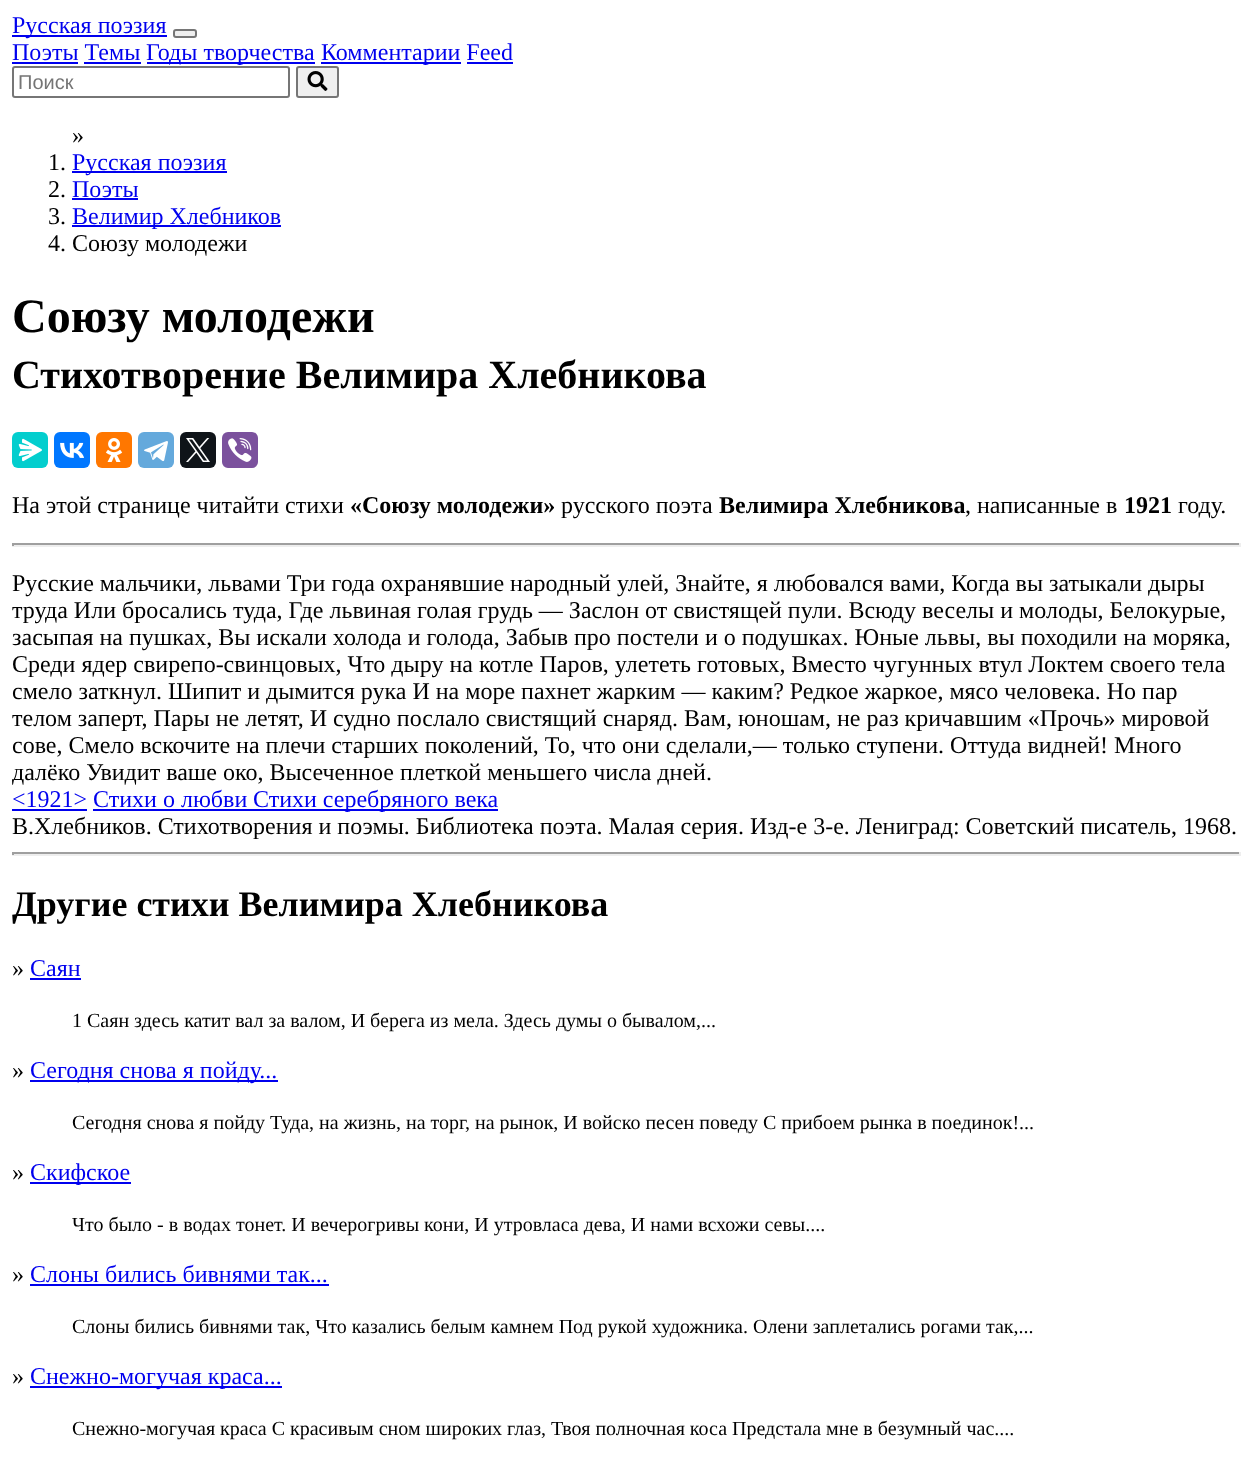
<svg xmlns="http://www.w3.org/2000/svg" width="1252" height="1458">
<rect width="100%" height="100%" fill="#fff"/>
<rect x="12" y="35" width="155" height="2" fill="#00e"/>
<text x="12" y="33" style="font-family:Liberation Serif;font-size:24px;fill:#00e">Русская поэзия</text>
<rect x="174" y="30" width="22" height="7" rx="2" fill="#efefef" stroke="#767676" stroke-width="2"/>
<text x="12" y="60" style="font-family:Liberation Serif;font-size:24px;fill:#00e">Поэты Темы</text>
<rect x="12" y="62" width="66" height="2" fill="#00e"/>
<rect x="147" y="62" width="168" height="2" fill="#00e"/>
<text x="146" y="60" style="font-family:Liberation Serif;font-size:24px;fill:#00e">Годы творчества</text>
<rect x="321" y="62" width="140" height="2" fill="#00e"/>
<text x="321" y="60" style="font-family:Liberation Serif;font-size:24px;fill:#00e">Комментарии Feed</text>
<rect x="84" y="62" width="57" height="2" fill="#00e"/>
<rect x="467" y="62" width="46" height="2" fill="#00e"/>
<rect x="13" y="67" width="276" height="30" rx="2" fill="none" stroke="#767676" stroke-width="2"/>
<text x="18" y="89" style="font-family:Liberation Sans;font-size:20px;fill:#757575">Поиск</text>
<rect x="297" y="67" width="41" height="30" rx="2" fill="#efefef" stroke="#767676" stroke-width="2"/>
<image x="307" y="71" width="21" height="20" href="media/1.png"/>
<text x="72" y="143" style="font-family:Liberation Serif;font-size:24px;fill:#000">»</text>
<text x="48" y="170" style="font-family:Liberation Serif;font-size:24px;fill:#000">1.</text>
<rect x="72" y="171" width="155" height="2" fill="#00e"/>
<text x="72" y="170" style="font-family:Liberation Serif;font-size:24px;fill:#00e">Русская поэзия</text>
<text x="48" y="197" style="font-family:Liberation Serif;font-size:24px;fill:#000">2.</text>
<text x="72" y="197" style="font-family:Liberation Serif;font-size:24px;fill:#00e">Поэты</text>
<rect x="72" y="198" width="66" height="2" fill="#00e"/>
<text x="48" y="224" style="font-family:Liberation Serif;font-size:24px;fill:#000">3.</text>
<rect x="72" y="225" width="209" height="2" fill="#00e"/>
<text x="72" y="224" style="font-family:Liberation Serif;font-size:24px;fill:#00e">Велимир Хлебников</text>
<text x="48" y="251" style="font-family:Liberation Serif;font-size:24px;fill:#000">4. Союзу молодежи</text>
<text x="12" y="332" style="font-family:Liberation Serif;font-size:48px;font-weight:bold;fill:#000">Союзу молодежи</text>
<text x="12" y="388" style="font-family:Liberation Serif;font-size:40px;font-weight:bold;fill:#000">Стихотворение Велимира Хлебникова</text>
<rect x="12" y="432" width="36" height="36" rx="6" fill="#03cece"/>
<image x="18" y="438" width="24" height="24" href="media/2.png"/>
<rect x="54" y="432" width="36" height="36" rx="6" fill="#07f"/>
<image x="60" y="442" width="24" height="16" href="media/3.png"/>
<rect x="96" y="432" width="36" height="36" rx="6" fill="#f70"/>
<image x="106" y="438" width="17" height="24" href="media/4.png"/>
<rect x="138" y="432" width="36" height="36" rx="6" fill="#64a9dc"/>
<image x="144" y="441" width="24" height="21" href="media/5.png"/>
<rect x="180" y="432" width="36" height="36" rx="6" fill="#0f1419"/>
<image x="186" y="438" width="24" height="24" href="media/6.png"/>
<rect x="222" y="432" width="36" height="36" rx="6" fill="#7b519d"/>
<image x="228" y="438" width="24" height="24" href="media/7.png"/>
<text x="12" y="513" style="font-family:Liberation Serif;font-size:24px;fill:#000">На этой странице читайти стихи</text>
<text x="350" y="513" style="font-family:Liberation Serif;font-size:24px;font-weight:bold;fill:#000">«Союзу молодежи»</text>
<text x="561" y="513" style="font-family:Liberation Serif;font-size:24px;fill:#000">русского поэта</text>
<text x="719" y="513" style="font-family:Liberation Serif;font-size:24px;font-weight:bold;fill:#000">Велимира Хлебникова</text>
<text x="965" y="513" style="font-family:Liberation Serif;font-size:24px;fill:#000">, написанные в</text>
<text x="1124" y="513" style="font-family:Liberation Serif;font-size:24px;font-weight:bold;fill:#000">1921</text>
<text x="1178" y="513" style="font-family:Liberation Serif;font-size:24px;fill:#000">году.</text>
<rect x="12" y="543" width="1229" height="2" fill="#9f9f9f"/>
<rect x="1239" y="543" width="2" height="3" fill="#eee"/>
<rect x="12" y="545" width="1229" height="2" fill="#eee"/>
<rect x="12" y="543" width="2" height="3" fill="#9f9f9f"/>
<text x="12" y="591" style="font-family:Liberation Serif;font-size:24px;fill:#000">Русские мальчики, львами Три года охранявшие народный улей, Знайте, я любовался вами, Когда вы затыкали дыры</text>
<text x="12" y="618" style="font-family:Liberation Serif;font-size:24px;fill:#000">труда Или бросались туда, Где львиная голая грудь — Заслон от свистящей пули. Всюду веселы и молоды, Белокурые,</text>
<text x="12" y="645" style="font-family:Liberation Serif;font-size:24px;fill:#000">засыпая на пушках, Вы искали холода и голода, Забыв про постели и о подушках. Юные львы, вы походили на моряка,</text>
<text x="12" y="672" style="font-family:Liberation Serif;font-size:24px;fill:#000">Среди ядер свирепо-свинцовых, Что дыру на котле Паров, улететь готовых, Вместо чугунных втул Локтем своего тела</text>
<text x="12" y="699" style="font-family:Liberation Serif;font-size:24px;fill:#000">смело заткнул. Шипит и дымится рука И на море пахнет жарким — каким? Редкое жаркое, мясо человека. Но пар</text>
<text x="12" y="726" style="font-family:Liberation Serif;font-size:24px;fill:#000">телом заперт, Пары не летят, И судно послало свистящий снаряд. Вам, юношам, не раз кричавшим «Прочь» мировой</text>
<text x="12" y="753" style="font-family:Liberation Serif;font-size:24px;fill:#000">сове, Смело вскочите на плечи старших поколений, То, что они сделали,— только ступени. Оттуда видней! Много</text>
<text x="12" y="780" style="font-family:Liberation Serif;font-size:24px;fill:#000">далёко Увидит ваше око, Высеченное плеткой меньшего числа дней.</text>
<text x="12" y="807" style="font-family:Liberation Serif;font-size:24px;fill:#00e">&lt;1921&gt; Стихи о любви</text>
<rect x="12" y="809" width="75" height="2" fill="#00e"/>
<rect x="93" y="809" width="405" height="2" fill="#00e"/>
<text x="253" y="807" style="font-family:Liberation Serif;font-size:24px;fill:#00e">Стихи серебряного века</text>
<text x="12" y="834" style="font-family:Liberation Serif;font-size:24px;fill:#000">В.Хлебников. Стихотворения и поэмы. Библиотека поэта. Малая серия. Изд-е 3-е. Лениград: Советский писатель, 1968.</text>
<rect x="12" y="852" width="1229" height="2" fill="#9f9f9f"/>
<rect x="1239" y="852" width="2" height="3" fill="#eee"/>
<rect x="12" y="854" width="1229" height="2" fill="#eee"/>
<rect x="12" y="852" width="2" height="3" fill="#9f9f9f"/>
<text x="12" y="916" style="font-family:Liberation Serif;font-size:36px;font-weight:bold;fill:#000">Другие стихи Велимира Хлебникова</text>
<text x="12" y="976" style="font-family:Liberation Serif;font-size:24px;fill:#000">»</text>
<text x="30" y="976" style="font-family:Liberation Serif;font-size:24px;fill:#00e">Саян</text>
<rect x="30" y="978" width="51" height="2" fill="#00e"/>
<text x="72" y="1027" style="font-family:Liberation Serif;font-size:20px;fill:#000">1 Саян здесь катит вал за валом, И берега из мела. Здесь думы о бывалом,...</text>
<text x="12" y="1078" style="font-family:Liberation Serif;font-size:24px;fill:#000">»</text>
<rect x="30" y="1080" width="248" height="2" fill="#00e"/>
<text x="30" y="1078" style="font-family:Liberation Serif;font-size:24px;fill:#00e">Сегодня снова я пойду...</text>
<text x="72" y="1129" style="font-family:Liberation Serif;font-size:20px;fill:#000">Сегодня снова я пойду Туда, на жизнь, на торг, на рынок, И войско песен поведу С прибоем рынка в поединок!...</text>
<text x="12" y="1180" style="font-family:Liberation Serif;font-size:24px;fill:#000">»</text>
<rect x="30" y="1182" width="101" height="2" fill="#00e"/>
<text x="30" y="1180" style="font-family:Liberation Serif;font-size:24px;fill:#00e">Скифское</text>
<text x="72" y="1231" style="font-family:Liberation Serif;font-size:20px;fill:#000">Что было - в водах тонет. И вечерогривы кони, И утровласа дева, И нами всхожи севы....</text>
<text x="12" y="1282" style="font-family:Liberation Serif;font-size:24px;fill:#000">»</text>
<text x="30" y="1282" style="font-family:Liberation Serif;font-size:24px;fill:#00e">Слоны бились бивнями так...</text>
<rect x="30" y="1284" width="299" height="2" fill="#00e"/>
<text x="72" y="1333" style="font-family:Liberation Serif;font-size:20px;fill:#000">Слоны бились бивнями так, Что казались белым камнем Под рукой художника. Олени заплетались рогами так,...</text>
<text x="12" y="1384" style="font-family:Liberation Serif;font-size:24px;fill:#000">»</text>
<rect x="30" y="1386" width="252" height="2" fill="#00e"/>
<text x="30" y="1384" style="font-family:Liberation Serif;font-size:24px;fill:#00e">Снежно-могучая краса...</text>
<text x="72" y="1435" style="font-family:Liberation Serif;font-size:20px;fill:#000">Снежно-могучая краса С красивым сном широких глаз, Твоя полночная коса Предстала мне в безумный час....</text>
</svg>
